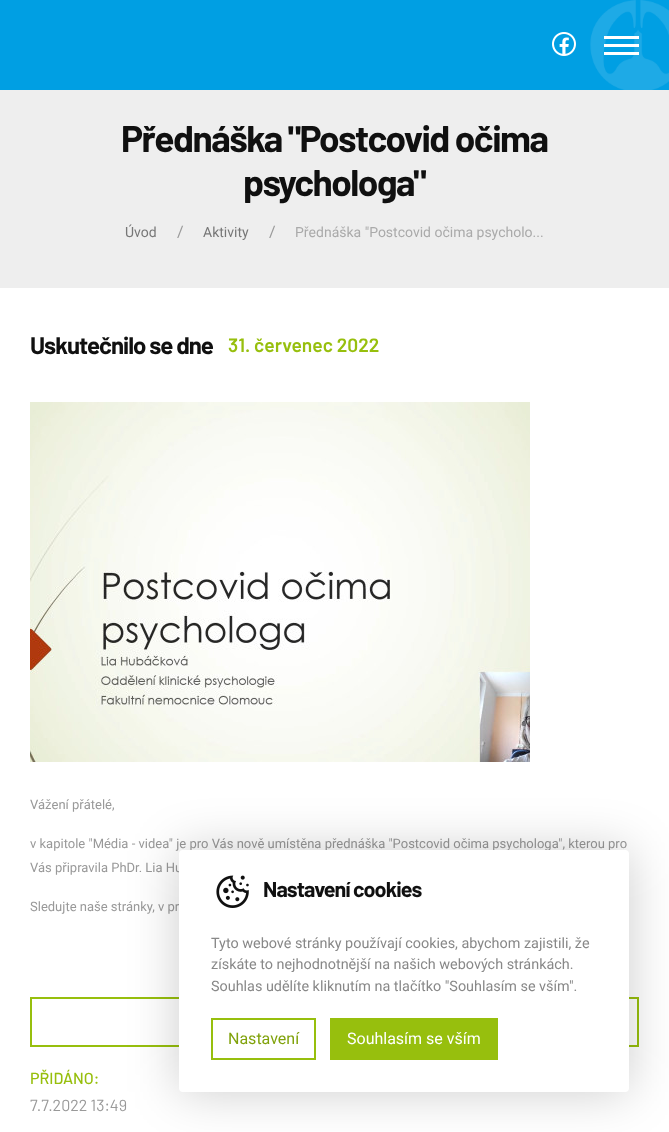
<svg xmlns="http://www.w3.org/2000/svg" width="669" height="1132">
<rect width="100%" height="100%" fill="#fff"/>
<rect width="590" height="90" fill="#009fe3"/>
<image x="590" y="0" width="79" height="90" href="media/1.png"/>
<image x="552" y="32" width="24" height="24" href="media/2.png"/>
<rect x="604" y="36" width="35" height="3" fill="#fff"/>
<rect x="604" y="44" width="35" height="3" fill="#fff"/>
<rect x="604" y="52" width="35" height="3" fill="#fff"/>
<rect y="90" width="669" height="198" fill="#eee"/>
<text x="121" y="152" style="font-family:Barlow;font-size:37px;font-weight:bold;letter-spacing:-1.5px;fill:#101010">Přednáška "Postcovid očima</text>
<text x="243" y="196" style="font-family:Barlow;font-size:37px;font-weight:bold;letter-spacing:-1.5px;fill:#101010">psychologa"</text>
<text x="125" y="237" style="font-family:Roboto;font-size:14px;fill:#777">Úvod</text>
<text x="177" y="237" style="font-family:Roboto;font-size:16px;fill:#999">/</text>
<text x="203" y="237" style="font-family:Roboto;font-size:14px;fill:#777">Aktivity</text>
<text x="269" y="237" style="font-family:Roboto;font-size:16px;fill:#999">/</text>
<text x="295" y="237" style="font-family:Roboto;font-size:14px;fill:#aaa">Přednáška "Postcovid očima psycholo...</text>
<text x="30" y="354" style="font-family:Barlow;font-size:24px;font-weight:bold;letter-spacing:-1px;fill:#101010">Uskutečnilo se dne</text>
<text x="228" y="352" style="font-family:Barlow;font-size:19.25px;font-weight:600;fill:#97bf0d">31. červenec 2022</text>
<image x="30" y="402" width="500" height="360" href="media/3.png"/>
<text x="30" y="809" style="font-family:Roboto;font-size:13px;fill:#999">Vážení přátelé,</text>
<text x="30" y="848" style="font-family:Roboto;font-size:13px;fill:#999">v kapitole "Média - videa" je pro Vás nově umístěna přednáška "Postcovid očima psychologa", kterou pro</text>
<text x="30" y="872" style="font-family:Roboto;font-size:13px;fill:#999">Vás připravila PhDr. Lia Hu</text>
<text x="30" y="911" style="font-family:Roboto;font-size:13px;fill:#999">Sledujte naše stránky, v pr</text>
<rect x="31" y="998" width="607" height="48" fill="none" stroke="#97bf0d" stroke-width="2"/>
<text x="30" y="1084" style="font-family:Barlow;font-size:16px;font-weight:500;fill:#97bf0d">PŘIDÁNO:</text>
<text x="30" y="1111" style="font-family:Barlow;font-size:16px;fill:#999">7.7.2022 13:49</text>
<rect x="179" y="850" width="450" height="242" rx="4" fill="#00000033" filter="blur(25px)"/>
<rect x="179" y="850" width="450" height="242" rx="4" fill="#fff"/>
<image x="216" y="875" width="33" height="33" href="media/4.png"/>
<text x="263" y="897" style="font-family:Barlow;font-size:21.5px;font-weight:bold;letter-spacing:-0.9px;fill:#101010">Nastavení cookies</text>
<text x="211" y="948" style="font-family:Roboto;font-size:14.4px;fill:#888">Tyto webové stránky používají cookies, abychom zajistili, že</text>
<text x="211" y="969" style="font-family:Roboto;font-size:14.4px;fill:#888">získáte to nejhodnotnější na našich webových stránkách.</text>
<text x="211" y="991" style="font-family:Roboto;font-size:14.4px;fill:#888">Souhlas udělíte kliknutím na tlačítko "Souhlasím se vším".</text>
<rect x="212" y="1019" width="103" height="40" fill="none" stroke="#97bf0d" stroke-width="2"/>
<text x="228" y="1044" style="font-family:Roboto;font-size:16px;fill:#80a20b">Nastavení</text>
<rect x="330" y="1018" width="168" height="42" fill="#97bf0d"/>
<text x="347" y="1044" style="font-family:Roboto;font-size:16px;fill:#fff">Souhlasím se vším</text>
</svg>
